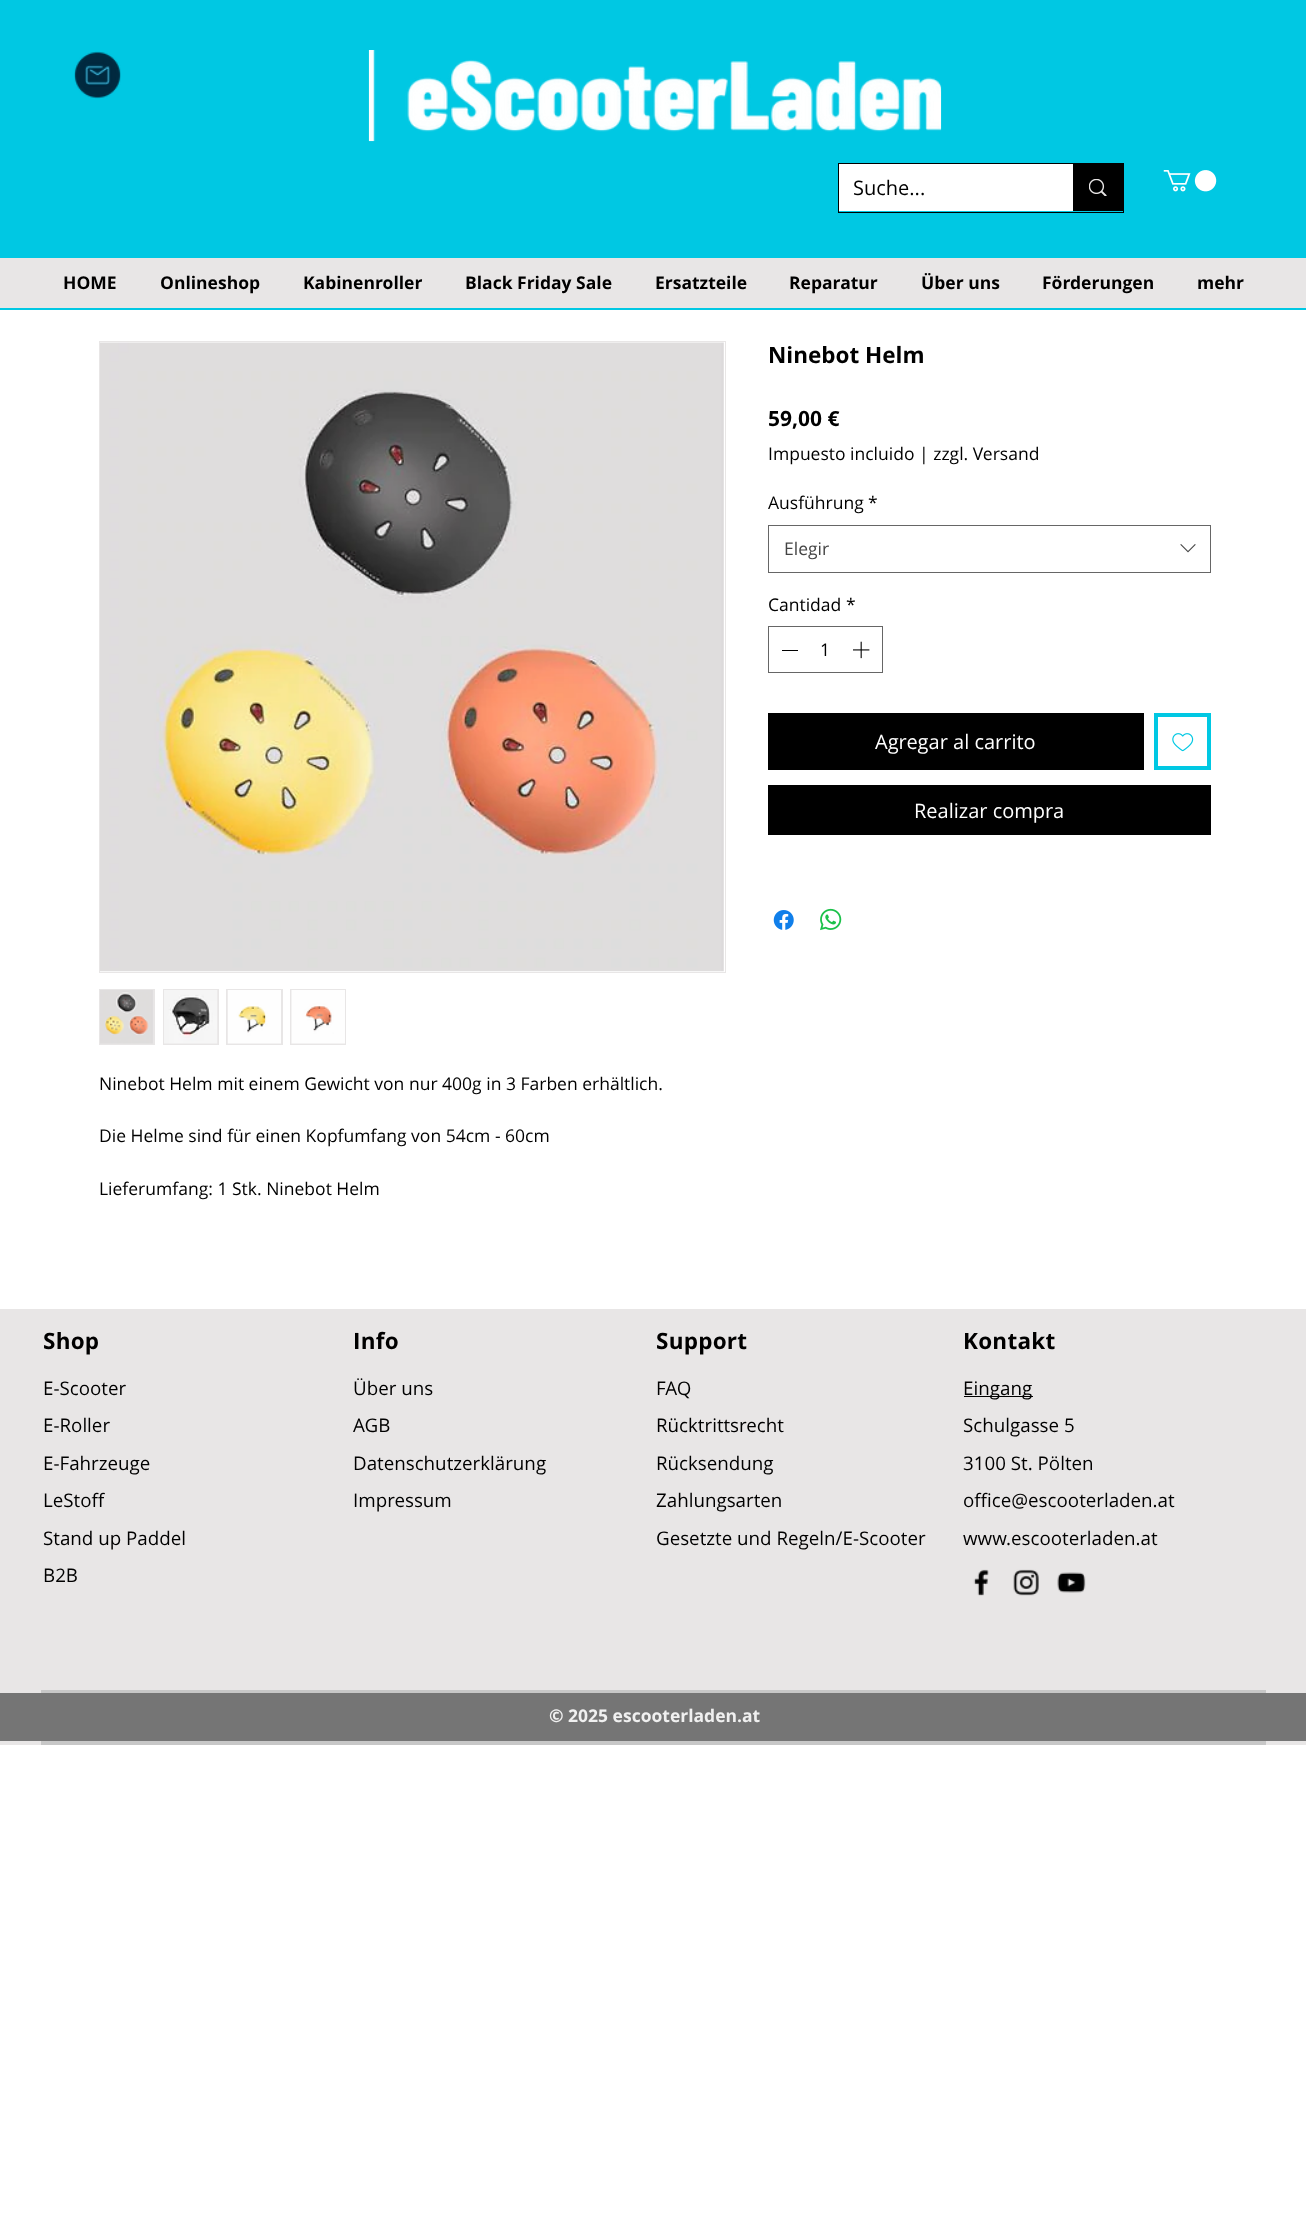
<svg xmlns="http://www.w3.org/2000/svg" width="1306" height="2230">
<rect width="100%" height="100%" fill="#fff"/>
<rect width="1306" height="310" fill="#00c8e3"/>
<image x="74" y="51" width="47" height="48" href="media/1.png"/>
<image x="368" y="50" width="574" height="92" href="media/2.png"/>
<rect x="838.5" y="163.5" width="285" height="49" fill="none" stroke="#000"/>
<rect x="839" y="164" width="234" height="47" fill="#fff"/>
<text x="853" y="195" style="font-family:Open Sans;font-size:20px;fill:#000">Suche...</text>
<rect x="1073" y="164" width="50" height="47" fill="#000"/>
<image x="1089" y="179" width="18" height="17" href="media/3.png"/>
<image x="1163" y="170" width="54" height="22" href="media/4.png"/>
<rect y="258" width="1306" height="50" fill="#e8e6e6"/>
<text x="63" y="289" style="font-family:Open Sans;font-size:17.5px;font-weight:bold;fill:#000">HOME</text>
<text x="160" y="289" style="font-family:Open Sans;font-size:17.5px;font-weight:bold;fill:#000">Onlineshop</text>
<text x="303" y="289" style="font-family:Open Sans;font-size:17.5px;font-weight:bold;fill:#000">Kabinenroller</text>
<text x="465" y="289" style="font-family:Open Sans;font-size:17.5px;font-weight:bold;fill:#000">Black Friday Sale</text>
<text x="655" y="289" style="font-family:Open Sans;font-size:17.5px;font-weight:bold;fill:#000">Ersatzteile</text>
<text x="789" y="289" style="font-family:Open Sans;font-size:17.5px;font-weight:bold;fill:#000">Reparatur</text>
<text x="921" y="289" style="font-family:Open Sans;font-size:17.5px;font-weight:bold;fill:#000">Über uns</text>
<text x="1042" y="289" style="font-family:Open Sans;font-size:17.5px;font-weight:bold;fill:#000">Förderungen</text>
<text x="1197" y="289" style="font-family:Open Sans;font-size:17.5px;font-weight:bold;fill:#000">mehr</text>
<text x="768" y="363" style="font-family:Open Sans;font-size:22.5px;font-weight:bold;fill:#000">Ninebot Helm</text>
<text x="768" y="426" style="font-family:Open Sans;font-size:21px;font-weight:bold;fill:#000">59,00 €</text>
<text x="768" y="460" style="font-family:Open Sans;font-size:17.5px;fill:#000">Impuesto incluido | zzgl. Versand</text>
<text x="768" y="509" style="font-family:Open Sans;font-size:17.5px;fill:#000">Ausführung</text>
<text x="868" y="509" style="font-family:Open Sans;font-size:17.5px;fill:#000">*</text>
<rect x="768.5" y="525.5" width="442" height="47" fill="none" stroke="#666"/>
<text x="784" y="555" style="font-family:Open Sans;font-size:17.5px;fill:#444">Elegir</text>
<image x="1180" y="544" width="16" height="9" href="media/5.png"/>
<text x="768" y="611" style="font-family:Open Sans;font-size:17.5px;fill:#000">Cantidad</text>
<text x="846" y="611" style="font-family:Open Sans;font-size:17.5px;fill:#000">*</text>
<rect x="768.5" y="626.5" width="114" height="46" fill="none" stroke="#666"/>
<rect x="782" y="650" width="16" height="1" fill="#000"/>
<text x="820" y="656" style="font-family:Open Sans;font-size:17.5px;fill:#000">1</text>
<image x="853" y="641" width="17" height="18" href="media/6.png"/>
<rect x="768" y="713" width="376" height="57" fill="#000"/>
<text x="875" y="749" style="font-family:Open Sans;font-size:20px;fill:#fff">Agregar al carrito</text>
<rect x="1156" y="715" width="53" height="53" fill="none" stroke="#00c8e3" stroke-width="4"/>
<image x="1172" y="733" width="22" height="19" href="media/7.png"/>
<rect x="768" y="785" width="443" height="50" fill="#000"/>
<text x="914" y="818" style="font-family:Open Sans;font-size:20px;fill:#fff">Realizar compra</text>
<image x="773" y="910" width="21" height="20" href="media/8.png"/>
<image x="820" y="908" width="22" height="23" href="media/9.png"/>
<rect x="99.5" y="341.5" width="626" height="631" fill="none" stroke="#e8e6e6"/>
<image x="100" y="342" width="624" height="630" href="media/10.png"/>
<rect x="99" y="989" width="56" height="56" fill="#e8e6e6"/>
<image x="100" y="990" width="53" height="54" href="media/11.png"/>
<rect x="163" y="989" width="56" height="56" fill="#e8e6e6"/>
<image x="164" y="990" width="54" height="54" href="media/12.png"/>
<rect x="226" y="989" width="57" height="56" fill="#e8e6e6"/>
<image x="227" y="990" width="54" height="54" href="media/13.png"/>
<rect x="290" y="989" width="56" height="56" fill="#e8e6e6"/>
<image x="291" y="990" width="54" height="54" href="media/14.png"/>
<text x="99" y="1090" style="font-family:Open Sans;font-size:17.5px;fill:#000">Ninebot Helm mit einem Gewicht von nur 400g in 3 Farben erhältlich.</text>
<text x="99" y="1142" style="font-family:Open Sans;font-size:17.5px;fill:#000">Die Helme sind für einen Kopfumfang von 54cm - 60cm</text>
<text x="99" y="1195" style="font-family:Open Sans;font-size:17.5px;fill:#000">Lieferumfang: 1 Stk. Ninebot Helm</text>
<rect y="1309" width="1306" height="436" fill="#e8e6e6"/>
<text x="43" y="1349" style="font-family:Open Sans;font-size:22.5px;font-weight:bold;letter-spacing:0.25px;fill:#000">Shop</text>
<text x="43" y="1395" style="font-family:Open Sans;font-size:18.75px;fill:#000">E-Scooter</text>
<text x="43" y="1432" style="font-family:Open Sans;font-size:18.75px;fill:#000">E-Roller</text>
<text x="43" y="1470" style="font-family:Open Sans;font-size:18.75px;fill:#000">E-Fahrzeuge</text>
<text x="43" y="1507" style="font-family:Open Sans;font-size:18.75px;fill:#000">LeStoff</text>
<text x="43" y="1545" style="font-family:Open Sans;font-size:18.75px;fill:#000">Stand up Paddel</text>
<text x="43" y="1582" style="font-family:Open Sans;font-size:18.75px;fill:#000">B2B</text>
<text x="353" y="1349" style="font-family:Open Sans;font-size:22.5px;font-weight:bold;letter-spacing:0.25px;fill:#000">Info</text>
<text x="353" y="1395" style="font-family:Open Sans;font-size:18.75px;fill:#000">Über uns</text>
<text x="353" y="1432" style="font-family:Open Sans;font-size:18.75px;fill:#000">AGB</text>
<text x="353" y="1470" style="font-family:Open Sans;font-size:18.75px;fill:#000">Datenschutzerklärung</text>
<text x="353" y="1507" style="font-family:Open Sans;font-size:18.75px;fill:#000">Impressum</text>
<text x="656" y="1349" style="font-family:Open Sans;font-size:22.5px;font-weight:bold;letter-spacing:0.25px;fill:#000">Support</text>
<text x="656" y="1395" style="font-family:Open Sans;font-size:18.75px;fill:#000">FAQ</text>
<text x="656" y="1432" style="font-family:Open Sans;font-size:18.75px;fill:#000">Rücktrittsrecht</text>
<text x="656" y="1470" style="font-family:Open Sans;font-size:18.75px;fill:#000">Rücksendung</text>
<text x="656" y="1507" style="font-family:Open Sans;font-size:18.75px;fill:#000">Zahlungsarten</text>
<text x="656" y="1545" style="font-family:Open Sans;font-size:18.75px;fill:#000">Gesetzte und Regeln/E-Scooter</text>
<text x="963" y="1349" style="font-family:Open Sans;font-size:22.5px;font-weight:bold;letter-spacing:0.25px;fill:#000">Kontakt</text>
<rect x="964" y="1396" width="69" height="1" fill="#000"/>
<text x="963" y="1395" style="font-family:Open Sans;font-size:18.75px;fill:#000">Eingang</text>
<text x="963" y="1432" style="font-family:Open Sans;font-size:18.75px;fill:#000">Schulgasse 5</text>
<text x="963" y="1470" style="font-family:Open Sans;font-size:18.75px;fill:#000">3100 St. Pölten</text>
<text x="963" y="1507" style="font-family:Open Sans;font-size:18.75px;fill:#000">office@escooterladen.at</text>
<text x="963" y="1545" style="font-family:Open Sans;font-size:18.75px;fill:#000">www.escooterladen.at</text>
<image x="973" y="1569" width="16" height="27" href="media/15.png"/>
<image x="1013" y="1569" width="26" height="27" href="media/16.png"/>
<image x="1057" y="1572" width="29" height="21" href="media/17.png"/>
<rect x="41" y="1690" width="1225" height="55" fill="#c7c7c7"/>
<rect y="1693" width="1306" height="48" fill="#757575"/>
<text x="549" y="1722" style="font-family:Open Sans;font-size:17.5px;font-weight:bold;fill:#f0f0f0">© 2025 escooterladen.at</text>
</svg>
